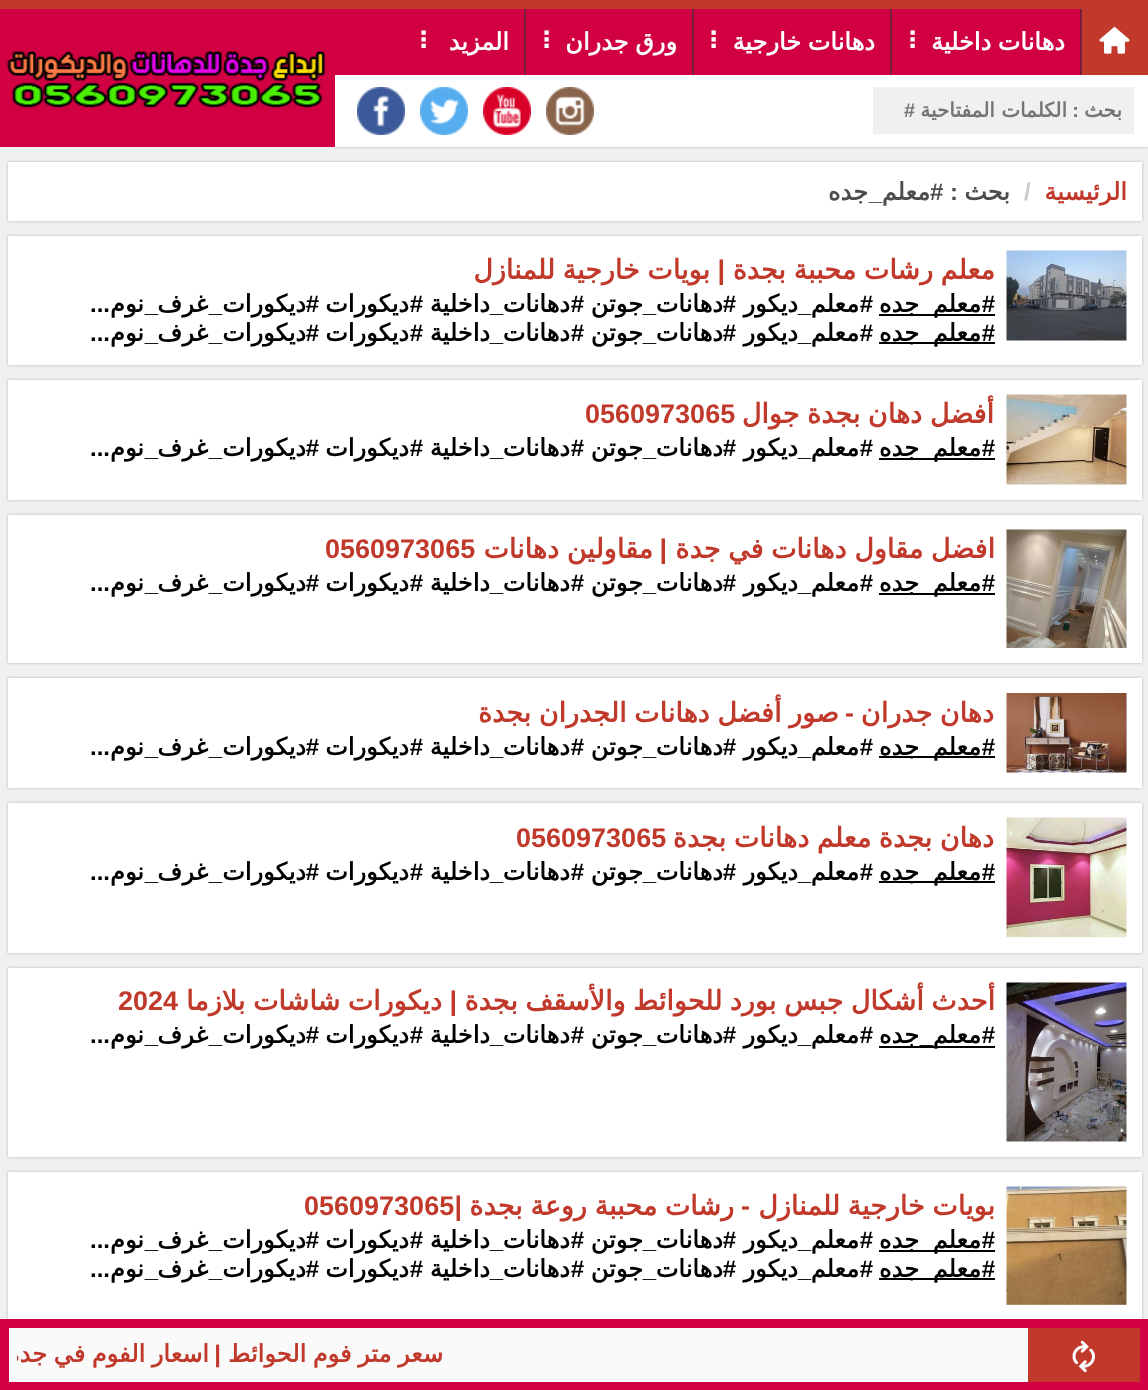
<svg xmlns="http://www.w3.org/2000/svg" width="1148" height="1390">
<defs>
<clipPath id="clip1"><rect x="17" y="1338" width="1003" height="32"/></clipPath>
</defs>
<rect width="100%" height="100%" fill="#f0f0f0"/>
<rect width="1148" height="9" fill="#c0392b"/>
<rect x="335" y="75" width="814" height="72" fill="#b5b5b5" filter="blur(1.5px)"/>
<rect x="335" y="9" width="745" height="66" fill="#d00043"/>
<rect x="1082" y="9" width="66" height="66" fill="#c0392b"/>
<rect x="1080" y="9" width="2" height="66" fill="#751d39"/>
<image x="1099" y="26" width="31" height="28" href="media/1.png"/>
<rect x="890" y="9" width="2" height="65" fill="#751d39"/>
<text x="1065" y="50" word-spacing="-1" style="font-family:DejaVu Sans;font-size:24px;font-weight:bold;direction:rtl;fill:#fff">دهانات داخلية</text>
<text x="907" y="50" style="font-family:DejaVu Sans;font-size:24px;font-weight:bold;fill:#fff">⠇</text>
<rect x="692" y="9" width="2" height="65" fill="#751d39"/>
<text x="875" y="50" word-spacing="-1" style="font-family:DejaVu Sans;font-size:24px;font-weight:bold;direction:rtl;fill:#fff">دهانات خارجية</text>
<text x="708" y="50" style="font-family:DejaVu Sans;font-size:24px;font-weight:bold;fill:#fff">⠇</text>
<rect x="524" y="9" width="2" height="65" fill="#751d39"/>
<text x="677" y="50" word-spacing="-1" style="font-family:DejaVu Sans;font-size:24px;font-weight:bold;direction:rtl;fill:#fff">ورق جدران</text>
<text x="541" y="50" style="font-family:DejaVu Sans;font-size:24px;font-weight:bold;fill:#fff">⠇</text>
<text x="509" y="50" style="font-family:DejaVu Sans;font-size:24px;font-weight:bold;direction:rtl;fill:#fff">المزيد</text>
<text x="418" y="50" style="font-family:DejaVu Sans;font-size:24px;font-weight:bold;fill:#fff">⠇</text>
<rect y="9" width="335" height="138" fill="#d00043"/>
<image x="7" y="51" width="318" height="57" href="media/2.png"/>
<rect x="335" y="75" width="813" height="72" fill="#fff"/>
<rect x="873" y="87" width="261" height="47" fill="#f0f0f0"/>
<text x="1122" y="117" style="font-family:DejaVu Sans;font-size:20px;font-weight:bold;direction:rtl;fill:#757575">بحث</text>
<text x="1079" y="117" style="font-family:Liberation Sans;font-size:20px;font-weight:bold;direction:rtl;fill:#757575">:</text>
<text x="1067" y="117" style="font-family:DejaVu Sans;font-size:20px;font-weight:bold;direction:rtl;fill:#757575">الكلمات المفتاحية</text>
<text x="915" y="117" style="font-family:Liberation Sans;font-size:20px;font-weight:bold;direction:rtl;fill:#757575">#</text>
<image x="546" y="87" width="48" height="48" href="media/3.png"/>
<image x="483" y="87" width="48" height="48" href="media/4.png"/>
<image x="420" y="87" width="48" height="48" href="media/5.png"/>
<image x="357" y="87" width="48" height="48" href="media/6.png"/>
<rect x="8" y="162" width="1134" height="59" fill="#b5b5b5" filter="blur(1.5px)"/>
<rect x="8" y="162" width="1134" height="59" fill="#fff"/>
<text x="1127" y="200" style="font-family:DejaVu Sans;font-size:24px;font-weight:bold;direction:rtl;fill:#c0392b">الرئيسية</text>
<text x="1024" y="200" style="font-family:Liberation Sans;font-size:24px;font-weight:bold;fill:#cbcbcb">/</text>
<text x="1010" y="200" style="font-family:DejaVu Sans;font-size:24px;font-weight:bold;direction:rtl;fill:#4d4d4d">بحث</text>
<text x="958" y="200" style="font-family:Liberation Sans;font-size:24px;font-weight:bold;direction:rtl;fill:#4d4d4d">: #</text>
<text x="930" y="200" style="font-family:DejaVu Sans;font-size:24px;font-weight:bold;direction:rtl;fill:#4d4d4d">معلم</text>
<text x="882" y="200" style="font-family:Liberation Sans;font-size:24px;font-weight:bold;direction:rtl;fill:#4d4d4d">_</text>
<text x="868" y="200" style="font-family:DejaVu Sans;font-size:24px;font-weight:bold;direction:rtl;fill:#4d4d4d">جده</text>
<rect x="8" y="236" width="1134" height="129" fill="#b5b5b5" filter="blur(1.5px)"/>
<rect x="8" y="236" width="1134" height="129" fill="#fff"/>
<image x="1006" y="250" width="121" height="91" href="media/7.png"/>
<text x="995" y="279" word-spacing="-1" style="font-family:DejaVu Sans;font-size:27px;font-weight:bold;direction:rtl;fill:#c0392b">معلم رشات محببة بجدة</text>
<text x="725" y="279" style="font-family:Liberation Sans;font-size:27px;font-weight:bold;direction:rtl;fill:#c0392b">|</text>
<text x="710" y="279" word-spacing="-1" style="font-family:DejaVu Sans;font-size:27px;font-weight:bold;direction:rtl;fill:#c0392b">بويات خارجية للمنازل</text>
<text x="995" y="312" style="font-family:Liberation Sans;font-size:24px;font-weight:bold;direction:rtl;fill:#000">#</text>
<rect x="879" y="314" width="116" height="2" fill="#000"/>
<text x="981" y="312" style="font-family:DejaVu Sans;font-size:24px;font-weight:bold;direction:rtl;fill:#000">معلم</text>
<text x="919" y="312" style="font-family:DejaVu Sans;font-size:24px;font-weight:bold;direction:rtl;fill:#000">جده</text>
<text x="873" y="312" style="font-family:Liberation Sans;font-size:24px;font-weight:bold;direction:rtl;fill:#000">#</text>
<text x="859" y="312" style="font-family:DejaVu Sans;font-size:24px;font-weight:bold;direction:rtl;fill:#000">معلم</text>
<text x="798" y="312" style="font-family:DejaVu Sans;font-size:24px;font-weight:bold;direction:rtl;fill:#000">ديكور</text>
<text x="736" y="312" style="font-family:Liberation Sans;font-size:24px;font-weight:bold;direction:rtl;fill:#000">#</text>
<text x="723" y="312" style="font-family:DejaVu Sans;font-size:24px;font-weight:bold;direction:rtl;fill:#000">دهانات</text>
<text x="643" y="312" style="font-family:DejaVu Sans;font-size:24px;font-weight:bold;direction:rtl;fill:#000">جوتن</text>
<text x="584" y="312" style="font-family:Liberation Sans;font-size:24px;font-weight:bold;direction:rtl;fill:#000">#</text>
<text x="570" y="312" style="font-family:DejaVu Sans;font-size:24px;font-weight:bold;direction:rtl;fill:#000">دهانات</text>
<text x="490" y="312" style="font-family:DejaVu Sans;font-size:24px;font-weight:bold;direction:rtl;fill:#000">داخلية</text>
<text x="423" y="312" style="font-family:Liberation Sans;font-size:24px;font-weight:bold;direction:rtl;fill:#000">#</text>
<text x="409" y="312" style="font-family:DejaVu Sans;font-size:24px;font-weight:bold;direction:rtl;fill:#000">ديكورات</text>
<text x="319" y="312" style="font-family:Liberation Sans;font-size:24px;font-weight:bold;direction:rtl;fill:#000">#</text>
<text x="306" y="312" style="font-family:DejaVu Sans;font-size:24px;font-weight:bold;direction:rtl;fill:#000">ديكورات</text>
<text x="208" y="312" style="font-family:DejaVu Sans;font-size:24px;font-weight:bold;direction:rtl;fill:#000">غرف</text>
<text x="144" y="312" style="font-family:DejaVu Sans;font-size:24px;font-weight:bold;direction:rtl;fill:#000">نوم</text>
<text x="110" y="312" style="font-family:Liberation Sans;font-size:24px;font-weight:bold;direction:rtl;fill:#000">...</text>
<text x="811" y="312" style="font-family:Liberation Sans;font-size:24px;font-weight:bold;direction:rtl;fill:#000">_</text>
<text x="656" y="312" style="font-family:Liberation Sans;font-size:24px;font-weight:bold;direction:rtl;fill:#000">_</text>
<text x="503" y="312" style="font-family:Liberation Sans;font-size:24px;font-weight:bold;direction:rtl;fill:#000">_</text>
<text x="222" y="312" style="font-family:Liberation Sans;font-size:24px;font-weight:bold;direction:rtl;fill:#000">_</text>
<text x="158" y="312" style="font-family:Liberation Sans;font-size:24px;font-weight:bold;direction:rtl;fill:#000">_</text>
<text x="995" y="341" style="font-family:Liberation Sans;font-size:24px;font-weight:bold;direction:rtl;fill:#000">#</text>
<rect x="879" y="342" width="116" height="2" fill="#000"/>
<text x="981" y="341" style="font-family:DejaVu Sans;font-size:24px;font-weight:bold;direction:rtl;fill:#000">معلم</text>
<text x="919" y="341" style="font-family:DejaVu Sans;font-size:24px;font-weight:bold;direction:rtl;fill:#000">جده</text>
<text x="873" y="341" style="font-family:Liberation Sans;font-size:24px;font-weight:bold;direction:rtl;fill:#000">#</text>
<text x="859" y="341" style="font-family:DejaVu Sans;font-size:24px;font-weight:bold;direction:rtl;fill:#000">معلم</text>
<text x="798" y="341" style="font-family:DejaVu Sans;font-size:24px;font-weight:bold;direction:rtl;fill:#000">ديكور</text>
<text x="736" y="341" style="font-family:Liberation Sans;font-size:24px;font-weight:bold;direction:rtl;fill:#000">#</text>
<text x="723" y="341" style="font-family:DejaVu Sans;font-size:24px;font-weight:bold;direction:rtl;fill:#000">دهانات</text>
<text x="643" y="341" style="font-family:DejaVu Sans;font-size:24px;font-weight:bold;direction:rtl;fill:#000">جوتن</text>
<text x="584" y="341" style="font-family:Liberation Sans;font-size:24px;font-weight:bold;direction:rtl;fill:#000">#</text>
<text x="570" y="341" style="font-family:DejaVu Sans;font-size:24px;font-weight:bold;direction:rtl;fill:#000">دهانات</text>
<text x="490" y="341" style="font-family:DejaVu Sans;font-size:24px;font-weight:bold;direction:rtl;fill:#000">داخلية</text>
<text x="423" y="341" style="font-family:Liberation Sans;font-size:24px;font-weight:bold;direction:rtl;fill:#000">#</text>
<text x="409" y="341" style="font-family:DejaVu Sans;font-size:24px;font-weight:bold;direction:rtl;fill:#000">ديكورات</text>
<text x="319" y="341" style="font-family:Liberation Sans;font-size:24px;font-weight:bold;direction:rtl;fill:#000">#</text>
<text x="306" y="341" style="font-family:DejaVu Sans;font-size:24px;font-weight:bold;direction:rtl;fill:#000">ديكورات</text>
<text x="208" y="341" style="font-family:DejaVu Sans;font-size:24px;font-weight:bold;direction:rtl;fill:#000">غرف</text>
<text x="144" y="341" style="font-family:DejaVu Sans;font-size:24px;font-weight:bold;direction:rtl;fill:#000">نوم</text>
<text x="110" y="341" style="font-family:Liberation Sans;font-size:24px;font-weight:bold;direction:rtl;fill:#000">...</text>
<text x="811" y="341" style="font-family:Liberation Sans;font-size:24px;font-weight:bold;direction:rtl;fill:#000">_</text>
<text x="656" y="341" style="font-family:Liberation Sans;font-size:24px;font-weight:bold;direction:rtl;fill:#000">_</text>
<text x="503" y="341" style="font-family:Liberation Sans;font-size:24px;font-weight:bold;direction:rtl;fill:#000">_</text>
<text x="222" y="341" style="font-family:Liberation Sans;font-size:24px;font-weight:bold;direction:rtl;fill:#000">_</text>
<text x="158" y="341" style="font-family:Liberation Sans;font-size:24px;font-weight:bold;direction:rtl;fill:#000">_</text>
<rect x="8" y="380" width="1134" height="120" fill="#b5b5b5" filter="blur(1.5px)"/>
<rect x="8" y="380" width="1134" height="120" fill="#fff"/>
<image x="1006" y="394" width="121" height="91" href="media/8.png"/>
<text x="994" y="423" word-spacing="-1" style="font-family:DejaVu Sans;font-size:27px;font-weight:bold;direction:rtl;fill:#c0392b">أفضل دهان بجدة جوال</text>
<text x="585" y="423" style="font-family:Liberation Sans;font-size:27px;font-weight:bold;fill:#c0392b">0560973065</text>
<text x="995" y="456" style="font-family:Liberation Sans;font-size:24px;font-weight:bold;direction:rtl;fill:#000">#</text>
<rect x="879" y="458" width="116" height="2" fill="#000"/>
<text x="981" y="456" style="font-family:DejaVu Sans;font-size:24px;font-weight:bold;direction:rtl;fill:#000">معلم</text>
<text x="919" y="456" style="font-family:DejaVu Sans;font-size:24px;font-weight:bold;direction:rtl;fill:#000">جده</text>
<text x="873" y="456" style="font-family:Liberation Sans;font-size:24px;font-weight:bold;direction:rtl;fill:#000">#</text>
<text x="859" y="456" style="font-family:DejaVu Sans;font-size:24px;font-weight:bold;direction:rtl;fill:#000">معلم</text>
<text x="798" y="456" style="font-family:DejaVu Sans;font-size:24px;font-weight:bold;direction:rtl;fill:#000">ديكور</text>
<text x="736" y="456" style="font-family:Liberation Sans;font-size:24px;font-weight:bold;direction:rtl;fill:#000">#</text>
<text x="723" y="456" style="font-family:DejaVu Sans;font-size:24px;font-weight:bold;direction:rtl;fill:#000">دهانات</text>
<text x="643" y="456" style="font-family:DejaVu Sans;font-size:24px;font-weight:bold;direction:rtl;fill:#000">جوتن</text>
<text x="584" y="456" style="font-family:Liberation Sans;font-size:24px;font-weight:bold;direction:rtl;fill:#000">#</text>
<text x="570" y="456" style="font-family:DejaVu Sans;font-size:24px;font-weight:bold;direction:rtl;fill:#000">دهانات</text>
<text x="490" y="456" style="font-family:DejaVu Sans;font-size:24px;font-weight:bold;direction:rtl;fill:#000">داخلية</text>
<text x="423" y="456" style="font-family:Liberation Sans;font-size:24px;font-weight:bold;direction:rtl;fill:#000">#</text>
<text x="409" y="456" style="font-family:DejaVu Sans;font-size:24px;font-weight:bold;direction:rtl;fill:#000">ديكورات</text>
<text x="319" y="456" style="font-family:Liberation Sans;font-size:24px;font-weight:bold;direction:rtl;fill:#000">#</text>
<text x="306" y="456" style="font-family:DejaVu Sans;font-size:24px;font-weight:bold;direction:rtl;fill:#000">ديكورات</text>
<text x="208" y="456" style="font-family:DejaVu Sans;font-size:24px;font-weight:bold;direction:rtl;fill:#000">غرف</text>
<text x="144" y="456" style="font-family:DejaVu Sans;font-size:24px;font-weight:bold;direction:rtl;fill:#000">نوم</text>
<text x="110" y="456" style="font-family:Liberation Sans;font-size:24px;font-weight:bold;direction:rtl;fill:#000">...</text>
<text x="811" y="456" style="font-family:Liberation Sans;font-size:24px;font-weight:bold;direction:rtl;fill:#000">_</text>
<text x="656" y="456" style="font-family:Liberation Sans;font-size:24px;font-weight:bold;direction:rtl;fill:#000">_</text>
<text x="503" y="456" style="font-family:Liberation Sans;font-size:24px;font-weight:bold;direction:rtl;fill:#000">_</text>
<text x="222" y="456" style="font-family:Liberation Sans;font-size:24px;font-weight:bold;direction:rtl;fill:#000">_</text>
<text x="158" y="456" style="font-family:Liberation Sans;font-size:24px;font-weight:bold;direction:rtl;fill:#000">_</text>
<rect x="8" y="515" width="1134" height="148" fill="#b5b5b5" filter="blur(1.5px)"/>
<rect x="8" y="515" width="1134" height="148" fill="#fff"/>
<image x="1006" y="529" width="121" height="119" href="media/9.png"/>
<text x="995" y="558" word-spacing="-1" style="font-family:DejaVu Sans;font-size:27px;font-weight:bold;direction:rtl;fill:#c0392b">افضل مقاول دهانات في جدة</text>
<text x="667" y="558" style="font-family:Liberation Sans;font-size:27px;font-weight:bold;direction:rtl;fill:#c0392b">|</text>
<text x="653" y="558" word-spacing="-1" style="font-family:DejaVu Sans;font-size:27px;font-weight:bold;direction:rtl;fill:#c0392b">مقاولين دهانات</text>
<text x="325" y="558" style="font-family:Liberation Sans;font-size:27px;font-weight:bold;fill:#c0392b">0560973065</text>
<text x="995" y="591" style="font-family:Liberation Sans;font-size:24px;font-weight:bold;direction:rtl;fill:#000">#</text>
<rect x="879" y="593" width="116" height="2" fill="#000"/>
<text x="981" y="591" style="font-family:DejaVu Sans;font-size:24px;font-weight:bold;direction:rtl;fill:#000">معلم</text>
<text x="919" y="591" style="font-family:DejaVu Sans;font-size:24px;font-weight:bold;direction:rtl;fill:#000">جده</text>
<text x="873" y="591" style="font-family:Liberation Sans;font-size:24px;font-weight:bold;direction:rtl;fill:#000">#</text>
<text x="859" y="591" style="font-family:DejaVu Sans;font-size:24px;font-weight:bold;direction:rtl;fill:#000">معلم</text>
<text x="798" y="591" style="font-family:DejaVu Sans;font-size:24px;font-weight:bold;direction:rtl;fill:#000">ديكور</text>
<text x="736" y="591" style="font-family:Liberation Sans;font-size:24px;font-weight:bold;direction:rtl;fill:#000">#</text>
<text x="723" y="591" style="font-family:DejaVu Sans;font-size:24px;font-weight:bold;direction:rtl;fill:#000">دهانات</text>
<text x="643" y="591" style="font-family:DejaVu Sans;font-size:24px;font-weight:bold;direction:rtl;fill:#000">جوتن</text>
<text x="584" y="591" style="font-family:Liberation Sans;font-size:24px;font-weight:bold;direction:rtl;fill:#000">#</text>
<text x="570" y="591" style="font-family:DejaVu Sans;font-size:24px;font-weight:bold;direction:rtl;fill:#000">دهانات</text>
<text x="490" y="591" style="font-family:DejaVu Sans;font-size:24px;font-weight:bold;direction:rtl;fill:#000">داخلية</text>
<text x="423" y="591" style="font-family:Liberation Sans;font-size:24px;font-weight:bold;direction:rtl;fill:#000">#</text>
<text x="409" y="591" style="font-family:DejaVu Sans;font-size:24px;font-weight:bold;direction:rtl;fill:#000">ديكورات</text>
<text x="319" y="591" style="font-family:Liberation Sans;font-size:24px;font-weight:bold;direction:rtl;fill:#000">#</text>
<text x="306" y="591" style="font-family:DejaVu Sans;font-size:24px;font-weight:bold;direction:rtl;fill:#000">ديكورات</text>
<text x="208" y="591" style="font-family:DejaVu Sans;font-size:24px;font-weight:bold;direction:rtl;fill:#000">غرف</text>
<text x="144" y="591" style="font-family:DejaVu Sans;font-size:24px;font-weight:bold;direction:rtl;fill:#000">نوم</text>
<text x="110" y="591" style="font-family:Liberation Sans;font-size:24px;font-weight:bold;direction:rtl;fill:#000">...</text>
<text x="811" y="591" style="font-family:Liberation Sans;font-size:24px;font-weight:bold;direction:rtl;fill:#000">_</text>
<text x="656" y="591" style="font-family:Liberation Sans;font-size:24px;font-weight:bold;direction:rtl;fill:#000">_</text>
<text x="503" y="591" style="font-family:Liberation Sans;font-size:24px;font-weight:bold;direction:rtl;fill:#000">_</text>
<text x="222" y="591" style="font-family:Liberation Sans;font-size:24px;font-weight:bold;direction:rtl;fill:#000">_</text>
<text x="158" y="591" style="font-family:Liberation Sans;font-size:24px;font-weight:bold;direction:rtl;fill:#000">_</text>
<rect x="8" y="678" width="1134" height="110" fill="#b5b5b5" filter="blur(1.5px)"/>
<rect x="8" y="678" width="1134" height="110" fill="#fff"/>
<image x="1006" y="693" width="121" height="80" href="media/10.png"/>
<text x="994" y="722" word-spacing="-1" style="font-family:DejaVu Sans;font-size:27px;font-weight:bold;direction:rtl;fill:#c0392b">دهان جدران</text>
<text x="854" y="722" style="font-family:Liberation Sans;font-size:27px;font-weight:bold;direction:rtl;fill:#c0392b">-</text>
<text x="839" y="722" word-spacing="-1" style="font-family:DejaVu Sans;font-size:27px;font-weight:bold;direction:rtl;fill:#c0392b">صور أفضل دهانات الجدران بجدة</text>
<text x="995" y="755" style="font-family:Liberation Sans;font-size:24px;font-weight:bold;direction:rtl;fill:#000">#</text>
<rect x="879" y="756" width="116" height="2" fill="#000"/>
<text x="981" y="755" style="font-family:DejaVu Sans;font-size:24px;font-weight:bold;direction:rtl;fill:#000">معلم</text>
<text x="919" y="755" style="font-family:DejaVu Sans;font-size:24px;font-weight:bold;direction:rtl;fill:#000">جده</text>
<text x="873" y="755" style="font-family:Liberation Sans;font-size:24px;font-weight:bold;direction:rtl;fill:#000">#</text>
<text x="859" y="755" style="font-family:DejaVu Sans;font-size:24px;font-weight:bold;direction:rtl;fill:#000">معلم</text>
<text x="798" y="755" style="font-family:DejaVu Sans;font-size:24px;font-weight:bold;direction:rtl;fill:#000">ديكور</text>
<text x="736" y="755" style="font-family:Liberation Sans;font-size:24px;font-weight:bold;direction:rtl;fill:#000">#</text>
<text x="723" y="755" style="font-family:DejaVu Sans;font-size:24px;font-weight:bold;direction:rtl;fill:#000">دهانات</text>
<text x="643" y="755" style="font-family:DejaVu Sans;font-size:24px;font-weight:bold;direction:rtl;fill:#000">جوتن</text>
<text x="584" y="755" style="font-family:Liberation Sans;font-size:24px;font-weight:bold;direction:rtl;fill:#000">#</text>
<text x="570" y="755" style="font-family:DejaVu Sans;font-size:24px;font-weight:bold;direction:rtl;fill:#000">دهانات</text>
<text x="490" y="755" style="font-family:DejaVu Sans;font-size:24px;font-weight:bold;direction:rtl;fill:#000">داخلية</text>
<text x="423" y="755" style="font-family:Liberation Sans;font-size:24px;font-weight:bold;direction:rtl;fill:#000">#</text>
<text x="409" y="755" style="font-family:DejaVu Sans;font-size:24px;font-weight:bold;direction:rtl;fill:#000">ديكورات</text>
<text x="319" y="755" style="font-family:Liberation Sans;font-size:24px;font-weight:bold;direction:rtl;fill:#000">#</text>
<text x="306" y="755" style="font-family:DejaVu Sans;font-size:24px;font-weight:bold;direction:rtl;fill:#000">ديكورات</text>
<text x="208" y="755" style="font-family:DejaVu Sans;font-size:24px;font-weight:bold;direction:rtl;fill:#000">غرف</text>
<text x="144" y="755" style="font-family:DejaVu Sans;font-size:24px;font-weight:bold;direction:rtl;fill:#000">نوم</text>
<text x="110" y="755" style="font-family:Liberation Sans;font-size:24px;font-weight:bold;direction:rtl;fill:#000">...</text>
<text x="811" y="755" style="font-family:Liberation Sans;font-size:24px;font-weight:bold;direction:rtl;fill:#000">_</text>
<text x="656" y="755" style="font-family:Liberation Sans;font-size:24px;font-weight:bold;direction:rtl;fill:#000">_</text>
<text x="503" y="755" style="font-family:Liberation Sans;font-size:24px;font-weight:bold;direction:rtl;fill:#000">_</text>
<text x="222" y="755" style="font-family:Liberation Sans;font-size:24px;font-weight:bold;direction:rtl;fill:#000">_</text>
<text x="158" y="755" style="font-family:Liberation Sans;font-size:24px;font-weight:bold;direction:rtl;fill:#000">_</text>
<rect x="8" y="803" width="1134" height="150" fill="#b5b5b5" filter="blur(1.5px)"/>
<rect x="8" y="803" width="1134" height="150" fill="#fff"/>
<image x="1006" y="817" width="121" height="121" href="media/11.png"/>
<text x="994" y="847" word-spacing="-1" style="font-family:DejaVu Sans;font-size:27px;font-weight:bold;direction:rtl;fill:#c0392b">دهان بجدة معلم دهانات بجدة</text>
<text x="516" y="847" style="font-family:Liberation Sans;font-size:27px;font-weight:bold;fill:#c0392b">0560973065</text>
<text x="995" y="880" style="font-family:Liberation Sans;font-size:24px;font-weight:bold;direction:rtl;fill:#000">#</text>
<rect x="879" y="881" width="116" height="2" fill="#000"/>
<text x="981" y="880" style="font-family:DejaVu Sans;font-size:24px;font-weight:bold;direction:rtl;fill:#000">معلم</text>
<text x="919" y="880" style="font-family:DejaVu Sans;font-size:24px;font-weight:bold;direction:rtl;fill:#000">جده</text>
<text x="873" y="880" style="font-family:Liberation Sans;font-size:24px;font-weight:bold;direction:rtl;fill:#000">#</text>
<text x="859" y="880" style="font-family:DejaVu Sans;font-size:24px;font-weight:bold;direction:rtl;fill:#000">معلم</text>
<text x="798" y="880" style="font-family:DejaVu Sans;font-size:24px;font-weight:bold;direction:rtl;fill:#000">ديكور</text>
<text x="736" y="880" style="font-family:Liberation Sans;font-size:24px;font-weight:bold;direction:rtl;fill:#000">#</text>
<text x="723" y="880" style="font-family:DejaVu Sans;font-size:24px;font-weight:bold;direction:rtl;fill:#000">دهانات</text>
<text x="643" y="880" style="font-family:DejaVu Sans;font-size:24px;font-weight:bold;direction:rtl;fill:#000">جوتن</text>
<text x="584" y="880" style="font-family:Liberation Sans;font-size:24px;font-weight:bold;direction:rtl;fill:#000">#</text>
<text x="570" y="880" style="font-family:DejaVu Sans;font-size:24px;font-weight:bold;direction:rtl;fill:#000">دهانات</text>
<text x="490" y="880" style="font-family:DejaVu Sans;font-size:24px;font-weight:bold;direction:rtl;fill:#000">داخلية</text>
<text x="423" y="880" style="font-family:Liberation Sans;font-size:24px;font-weight:bold;direction:rtl;fill:#000">#</text>
<text x="409" y="880" style="font-family:DejaVu Sans;font-size:24px;font-weight:bold;direction:rtl;fill:#000">ديكورات</text>
<text x="319" y="880" style="font-family:Liberation Sans;font-size:24px;font-weight:bold;direction:rtl;fill:#000">#</text>
<text x="306" y="880" style="font-family:DejaVu Sans;font-size:24px;font-weight:bold;direction:rtl;fill:#000">ديكورات</text>
<text x="208" y="880" style="font-family:DejaVu Sans;font-size:24px;font-weight:bold;direction:rtl;fill:#000">غرف</text>
<text x="144" y="880" style="font-family:DejaVu Sans;font-size:24px;font-weight:bold;direction:rtl;fill:#000">نوم</text>
<text x="110" y="880" style="font-family:Liberation Sans;font-size:24px;font-weight:bold;direction:rtl;fill:#000">...</text>
<text x="811" y="880" style="font-family:Liberation Sans;font-size:24px;font-weight:bold;direction:rtl;fill:#000">_</text>
<text x="656" y="880" style="font-family:Liberation Sans;font-size:24px;font-weight:bold;direction:rtl;fill:#000">_</text>
<text x="503" y="880" style="font-family:Liberation Sans;font-size:24px;font-weight:bold;direction:rtl;fill:#000">_</text>
<text x="222" y="880" style="font-family:Liberation Sans;font-size:24px;font-weight:bold;direction:rtl;fill:#000">_</text>
<text x="158" y="880" style="font-family:Liberation Sans;font-size:24px;font-weight:bold;direction:rtl;fill:#000">_</text>
<rect x="8" y="968" width="1134" height="189" fill="#b5b5b5" filter="blur(1.5px)"/>
<rect x="8" y="968" width="1134" height="189" fill="#fff"/>
<image x="1006" y="982" width="121" height="160" href="media/12.png"/>
<text x="995" y="1010" word-spacing="-1" style="font-family:DejaVu Sans;font-size:27px;font-weight:bold;direction:rtl;fill:#c0392b">أحدث أشكال جبس بورد للحوائط والأسقف بجدة</text>
<text x="457" y="1010" style="font-family:Liberation Sans;font-size:27px;font-weight:bold;direction:rtl;fill:#c0392b">|</text>
<text x="442" y="1010" word-spacing="-1" style="font-family:DejaVu Sans;font-size:27px;font-weight:bold;direction:rtl;fill:#c0392b">ديكورات شاشات بلازما</text>
<text x="118" y="1010" style="font-family:Liberation Sans;font-size:27px;font-weight:bold;fill:#c0392b">2024</text>
<text x="995" y="1043" style="font-family:Liberation Sans;font-size:24px;font-weight:bold;direction:rtl;fill:#000">#</text>
<rect x="879" y="1046" width="116" height="2" fill="#000"/>
<text x="981" y="1043" style="font-family:DejaVu Sans;font-size:24px;font-weight:bold;direction:rtl;fill:#000">معلم</text>
<text x="919" y="1043" style="font-family:DejaVu Sans;font-size:24px;font-weight:bold;direction:rtl;fill:#000">جده</text>
<text x="873" y="1043" style="font-family:Liberation Sans;font-size:24px;font-weight:bold;direction:rtl;fill:#000">#</text>
<text x="859" y="1043" style="font-family:DejaVu Sans;font-size:24px;font-weight:bold;direction:rtl;fill:#000">معلم</text>
<text x="798" y="1043" style="font-family:DejaVu Sans;font-size:24px;font-weight:bold;direction:rtl;fill:#000">ديكور</text>
<text x="736" y="1043" style="font-family:Liberation Sans;font-size:24px;font-weight:bold;direction:rtl;fill:#000">#</text>
<text x="723" y="1043" style="font-family:DejaVu Sans;font-size:24px;font-weight:bold;direction:rtl;fill:#000">دهانات</text>
<text x="643" y="1043" style="font-family:DejaVu Sans;font-size:24px;font-weight:bold;direction:rtl;fill:#000">جوتن</text>
<text x="584" y="1043" style="font-family:Liberation Sans;font-size:24px;font-weight:bold;direction:rtl;fill:#000">#</text>
<text x="570" y="1043" style="font-family:DejaVu Sans;font-size:24px;font-weight:bold;direction:rtl;fill:#000">دهانات</text>
<text x="490" y="1043" style="font-family:DejaVu Sans;font-size:24px;font-weight:bold;direction:rtl;fill:#000">داخلية</text>
<text x="423" y="1043" style="font-family:Liberation Sans;font-size:24px;font-weight:bold;direction:rtl;fill:#000">#</text>
<text x="409" y="1043" style="font-family:DejaVu Sans;font-size:24px;font-weight:bold;direction:rtl;fill:#000">ديكورات</text>
<text x="319" y="1043" style="font-family:Liberation Sans;font-size:24px;font-weight:bold;direction:rtl;fill:#000">#</text>
<text x="306" y="1043" style="font-family:DejaVu Sans;font-size:24px;font-weight:bold;direction:rtl;fill:#000">ديكورات</text>
<text x="208" y="1043" style="font-family:DejaVu Sans;font-size:24px;font-weight:bold;direction:rtl;fill:#000">غرف</text>
<text x="144" y="1043" style="font-family:DejaVu Sans;font-size:24px;font-weight:bold;direction:rtl;fill:#000">نوم</text>
<text x="110" y="1043" style="font-family:Liberation Sans;font-size:24px;font-weight:bold;direction:rtl;fill:#000">...</text>
<text x="933" y="1043" style="font-family:Liberation Sans;font-size:24px;font-weight:bold;direction:rtl;fill:#000">_</text>
<text x="811" y="1043" style="font-family:Liberation Sans;font-size:24px;font-weight:bold;direction:rtl;fill:#000">_</text>
<text x="656" y="1043" style="font-family:Liberation Sans;font-size:24px;font-weight:bold;direction:rtl;fill:#000">_</text>
<text x="503" y="1043" style="font-family:Liberation Sans;font-size:24px;font-weight:bold;direction:rtl;fill:#000">_</text>
<text x="222" y="1043" style="font-family:Liberation Sans;font-size:24px;font-weight:bold;direction:rtl;fill:#000">_</text>
<text x="158" y="1043" style="font-family:Liberation Sans;font-size:24px;font-weight:bold;direction:rtl;fill:#000">_</text>
<rect x="8" y="1172" width="1134" height="148" fill="#b5b5b5" filter="blur(1.5px)"/>
<rect x="8" y="1172" width="1134" height="147" fill="#fff"/>
<image x="1006" y="1186" width="121" height="119" href="media/13.png"/>
<text x="995" y="1215" word-spacing="-1" style="font-family:DejaVu Sans;font-size:27px;font-weight:bold;direction:rtl;fill:#c0392b">بويات خارجية للمنازل</text>
<text x="750" y="1215" style="font-family:Liberation Sans;font-size:27px;font-weight:bold;direction:rtl;fill:#c0392b">-</text>
<text x="734" y="1215" word-spacing="-1" style="font-family:DejaVu Sans;font-size:27px;font-weight:bold;direction:rtl;fill:#c0392b">رشات محببة روعة بجدة</text>
<text x="462" y="1215" style="font-family:Liberation Sans;font-size:27px;font-weight:bold;direction:rtl;fill:#c0392b">|</text>
<text x="304" y="1215" style="font-family:Liberation Sans;font-size:27px;font-weight:bold;fill:#c0392b">0560973065</text>
<text x="995" y="1248" style="font-family:Liberation Sans;font-size:24px;font-weight:bold;direction:rtl;fill:#000">#</text>
<rect x="879" y="1250" width="116" height="2" fill="#000"/>
<text x="981" y="1248" style="font-family:DejaVu Sans;font-size:24px;font-weight:bold;direction:rtl;fill:#000">معلم</text>
<text x="919" y="1248" style="font-family:DejaVu Sans;font-size:24px;font-weight:bold;direction:rtl;fill:#000">جده</text>
<text x="873" y="1248" style="font-family:Liberation Sans;font-size:24px;font-weight:bold;direction:rtl;fill:#000">#</text>
<text x="859" y="1248" style="font-family:DejaVu Sans;font-size:24px;font-weight:bold;direction:rtl;fill:#000">معلم</text>
<text x="798" y="1248" style="font-family:DejaVu Sans;font-size:24px;font-weight:bold;direction:rtl;fill:#000">ديكور</text>
<text x="736" y="1248" style="font-family:Liberation Sans;font-size:24px;font-weight:bold;direction:rtl;fill:#000">#</text>
<text x="723" y="1248" style="font-family:DejaVu Sans;font-size:24px;font-weight:bold;direction:rtl;fill:#000">دهانات</text>
<text x="643" y="1248" style="font-family:DejaVu Sans;font-size:24px;font-weight:bold;direction:rtl;fill:#000">جوتن</text>
<text x="584" y="1248" style="font-family:Liberation Sans;font-size:24px;font-weight:bold;direction:rtl;fill:#000">#</text>
<text x="570" y="1248" style="font-family:DejaVu Sans;font-size:24px;font-weight:bold;direction:rtl;fill:#000">دهانات</text>
<text x="490" y="1248" style="font-family:DejaVu Sans;font-size:24px;font-weight:bold;direction:rtl;fill:#000">داخلية</text>
<text x="423" y="1248" style="font-family:Liberation Sans;font-size:24px;font-weight:bold;direction:rtl;fill:#000">#</text>
<text x="409" y="1248" style="font-family:DejaVu Sans;font-size:24px;font-weight:bold;direction:rtl;fill:#000">ديكورات</text>
<text x="319" y="1248" style="font-family:Liberation Sans;font-size:24px;font-weight:bold;direction:rtl;fill:#000">#</text>
<text x="306" y="1248" style="font-family:DejaVu Sans;font-size:24px;font-weight:bold;direction:rtl;fill:#000">ديكورات</text>
<text x="208" y="1248" style="font-family:DejaVu Sans;font-size:24px;font-weight:bold;direction:rtl;fill:#000">غرف</text>
<text x="144" y="1248" style="font-family:DejaVu Sans;font-size:24px;font-weight:bold;direction:rtl;fill:#000">نوم</text>
<text x="110" y="1248" style="font-family:Liberation Sans;font-size:24px;font-weight:bold;direction:rtl;fill:#000">...</text>
<text x="811" y="1248" style="font-family:Liberation Sans;font-size:24px;font-weight:bold;direction:rtl;fill:#000">_</text>
<text x="656" y="1248" style="font-family:Liberation Sans;font-size:24px;font-weight:bold;direction:rtl;fill:#000">_</text>
<text x="503" y="1248" style="font-family:Liberation Sans;font-size:24px;font-weight:bold;direction:rtl;fill:#000">_</text>
<text x="222" y="1248" style="font-family:Liberation Sans;font-size:24px;font-weight:bold;direction:rtl;fill:#000">_</text>
<text x="158" y="1248" style="font-family:Liberation Sans;font-size:24px;font-weight:bold;direction:rtl;fill:#000">_</text>
<text x="995" y="1277" style="font-family:Liberation Sans;font-size:24px;font-weight:bold;direction:rtl;fill:#000">#</text>
<rect x="879" y="1278" width="116" height="2" fill="#000"/>
<text x="981" y="1277" style="font-family:DejaVu Sans;font-size:24px;font-weight:bold;direction:rtl;fill:#000">معلم</text>
<text x="919" y="1277" style="font-family:DejaVu Sans;font-size:24px;font-weight:bold;direction:rtl;fill:#000">جده</text>
<text x="873" y="1277" style="font-family:Liberation Sans;font-size:24px;font-weight:bold;direction:rtl;fill:#000">#</text>
<text x="859" y="1277" style="font-family:DejaVu Sans;font-size:24px;font-weight:bold;direction:rtl;fill:#000">معلم</text>
<text x="798" y="1277" style="font-family:DejaVu Sans;font-size:24px;font-weight:bold;direction:rtl;fill:#000">ديكور</text>
<text x="736" y="1277" style="font-family:Liberation Sans;font-size:24px;font-weight:bold;direction:rtl;fill:#000">#</text>
<text x="723" y="1277" style="font-family:DejaVu Sans;font-size:24px;font-weight:bold;direction:rtl;fill:#000">دهانات</text>
<text x="643" y="1277" style="font-family:DejaVu Sans;font-size:24px;font-weight:bold;direction:rtl;fill:#000">جوتن</text>
<text x="584" y="1277" style="font-family:Liberation Sans;font-size:24px;font-weight:bold;direction:rtl;fill:#000">#</text>
<text x="570" y="1277" style="font-family:DejaVu Sans;font-size:24px;font-weight:bold;direction:rtl;fill:#000">دهانات</text>
<text x="490" y="1277" style="font-family:DejaVu Sans;font-size:24px;font-weight:bold;direction:rtl;fill:#000">داخلية</text>
<text x="423" y="1277" style="font-family:Liberation Sans;font-size:24px;font-weight:bold;direction:rtl;fill:#000">#</text>
<text x="409" y="1277" style="font-family:DejaVu Sans;font-size:24px;font-weight:bold;direction:rtl;fill:#000">ديكورات</text>
<text x="319" y="1277" style="font-family:Liberation Sans;font-size:24px;font-weight:bold;direction:rtl;fill:#000">#</text>
<text x="306" y="1277" style="font-family:DejaVu Sans;font-size:24px;font-weight:bold;direction:rtl;fill:#000">ديكورات</text>
<text x="208" y="1277" style="font-family:DejaVu Sans;font-size:24px;font-weight:bold;direction:rtl;fill:#000">غرف</text>
<text x="144" y="1277" style="font-family:DejaVu Sans;font-size:24px;font-weight:bold;direction:rtl;fill:#000">نوم</text>
<text x="110" y="1277" style="font-family:Liberation Sans;font-size:24px;font-weight:bold;direction:rtl;fill:#000">...</text>
<text x="811" y="1277" style="font-family:Liberation Sans;font-size:24px;font-weight:bold;direction:rtl;fill:#000">_</text>
<text x="656" y="1277" style="font-family:Liberation Sans;font-size:24px;font-weight:bold;direction:rtl;fill:#000">_</text>
<text x="503" y="1277" style="font-family:Liberation Sans;font-size:24px;font-weight:bold;direction:rtl;fill:#000">_</text>
<text x="222" y="1277" style="font-family:Liberation Sans;font-size:24px;font-weight:bold;direction:rtl;fill:#000">_</text>
<text x="158" y="1277" style="font-family:Liberation Sans;font-size:24px;font-weight:bold;direction:rtl;fill:#000">_</text>
<rect y="1319" width="1148" height="71" fill="#d00043"/>
<rect x="1028" y="1328" width="112" height="54" fill="#c0392b"/>
<image x="1072" y="1340" width="23" height="33" href="media/14.png"/>
<rect x="9" y="1328" width="1019" height="54" fill="#fafafa"/>
<text x="443" y="1362" word-spacing="-1" style="font-family:DejaVu Sans;font-size:24px;font-weight:bold;direction:rtl;fill:#c0392b">سعر متر فوم الحوائط</text>
<text x="221" y="1362" style="font-family:Liberation Sans;font-size:24px;font-weight:bold;direction:rtl;fill:#c0392b">|</text>
<g clip-path="url(#clip1)">
<text x="209" y="1362" word-spacing="-1" style="font-family:DejaVu Sans;font-size:24px;font-weight:bold;direction:rtl;fill:#c0392b">اسعار الفوم في جده</text>
</g>
</svg>
